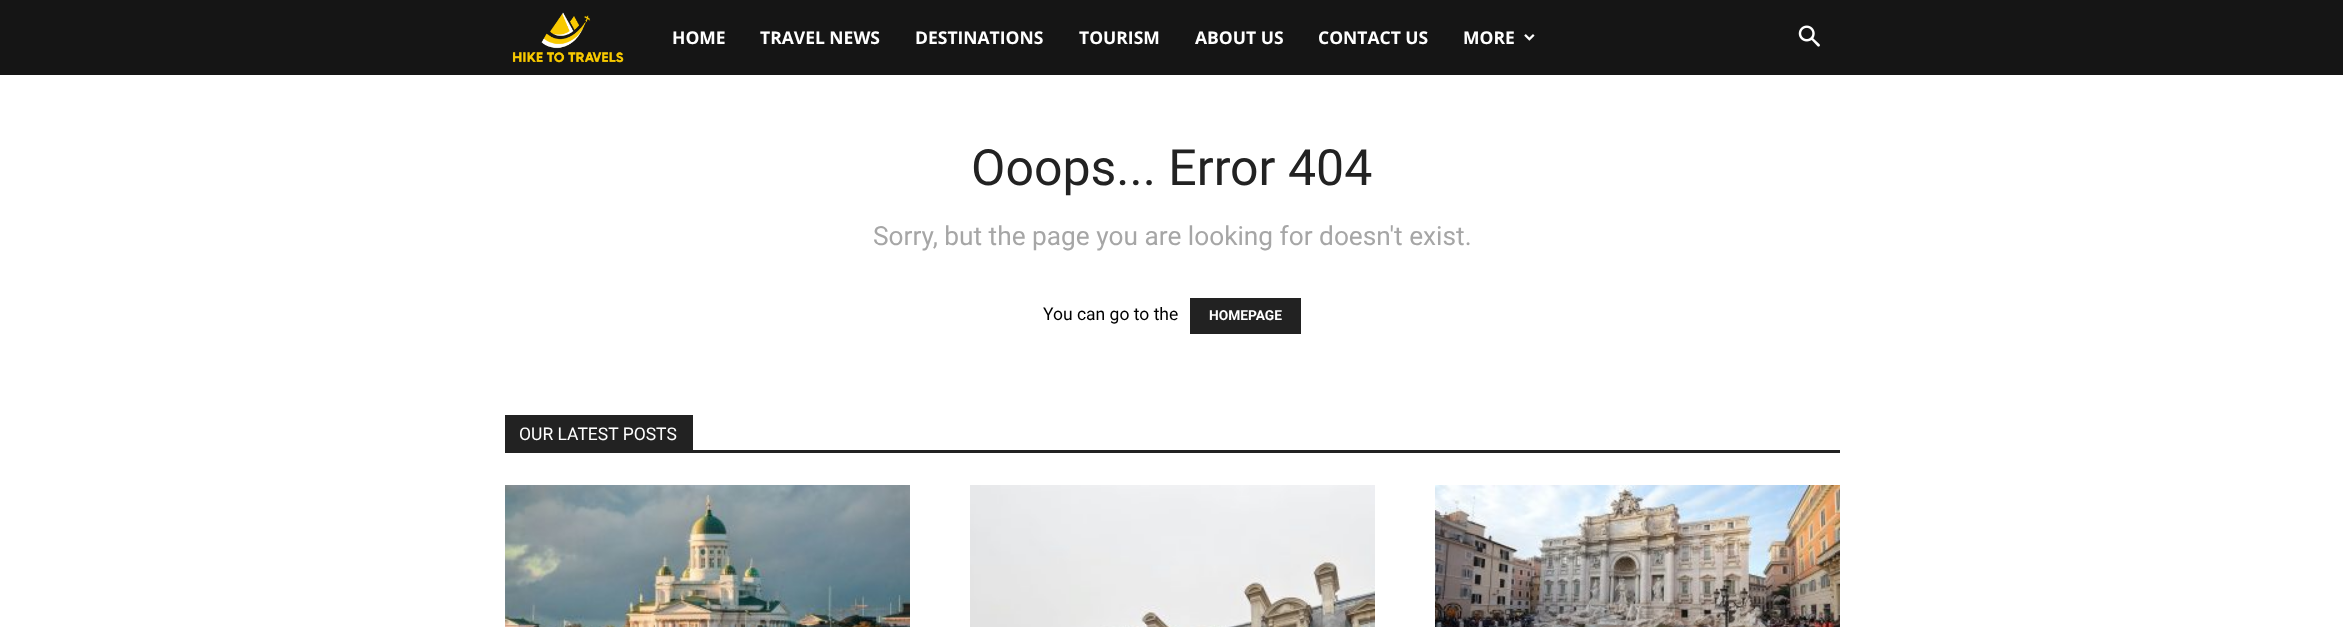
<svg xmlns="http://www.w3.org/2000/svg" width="2343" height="627">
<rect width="100%" height="100%" fill="#fff"/>
<rect width="2343" height="75" fill="#151515"/>
<image x="512" y="12" width="112" height="51" href="media/1.png"/>
<text x="672" y="44" style="font-family:Open Sans;font-size:17.5px;font-weight:bold;fill:#fff">HOME</text>
<text x="760" y="44" style="font-family:Open Sans;font-size:17.5px;font-weight:bold;fill:#fff">TRAVEL NEWS</text>
<text x="915" y="44" style="font-family:Open Sans;font-size:17.5px;font-weight:bold;fill:#fff">DESTINATIONS</text>
<text x="1079" y="44" style="font-family:Open Sans;font-size:17.5px;font-weight:bold;fill:#fff">TOURISM</text>
<text x="1195" y="44" style="font-family:Open Sans;font-size:17.5px;font-weight:bold;fill:#fff">ABOUT US</text>
<text x="1318" y="44" style="font-family:Open Sans;font-size:17.5px;font-weight:bold;fill:#fff">CONTACT US</text>
<text x="1463" y="44" style="font-family:Open Sans;font-size:17.5px;font-weight:bold;fill:#fff">MORE</text>
<image x="1524" y="34" width="11" height="7" href="media/2.png"/>
<image x="1798" y="25" width="22" height="22" href="media/3.png"/>
<text x="971" y="185" style="font-family:Roboto;font-size:50px;fill:#222">Ooops... Error 404</text>
<text x="873" y="245" style="font-family:Roboto;font-size:26.25px;fill:#a6a6a6">Sorry, but the page you are looking for doesn't exist.</text>
<text x="1043" y="320" style="font-family:Roboto;font-size:17.5px;fill:#000">You can go to the</text>
<rect x="1190" y="298" width="111" height="36" fill="#222"/>
<text x="1209" y="320" style="font-family:Roboto;font-size:13.75px;font-weight:bold;fill:#fff">HOMEPAGE</text>
<rect x="505" y="450" width="1335" height="3" fill="#222"/>
<rect x="505" y="415" width="188" height="35" fill="#222"/>
<text x="519" y="440" style="font-family:Roboto;font-size:17.5px;fill:#fff">OUR LATEST POSTS</text>
<image x="505" y="485" width="405" height="142" href="media/4.png"/>
<image x="970" y="485" width="405" height="142" href="media/5.png"/>
<image x="1435" y="485" width="405" height="142" href="media/6.png"/>
</svg>
